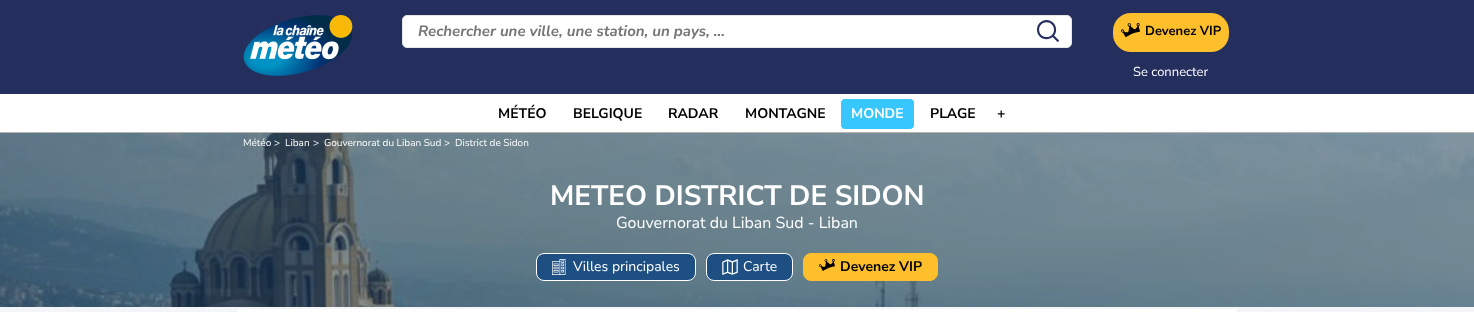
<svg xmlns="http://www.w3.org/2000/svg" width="1474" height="312">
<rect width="100%" height="100%" fill="#f4f5f8"/>
<rect width="1474" height="94" fill="#242f5e"/>
<image x="243" y="15" width="110" height="61" href="media/1.png"/>
<rect x="402.5" y="15.5" width="669" height="32" rx="4.5" fill="#fff" stroke="#e6e6e6"/>
<text x="418" y="36" style="font-family:Nunito Sans;font-size:15px;font-weight:bold;font-style:italic;fill:#757575">Rechercher une ville, une station, un pays, ...</text>
<image x="1037" y="20" width="22" height="22" href="media/2.png"/>
<rect x="1113" y="13" width="116" height="39" rx="18" fill="#febf2c"/>
<image x="1121" y="23" width="19" height="15" href="media/3.png"/>
<text x="1145" y="35" style="font-family:Nunito Sans;font-size:13px;font-weight:bold;fill:#000">Devenez VIP</text>
<text x="1133" y="76" style="font-family:Nunito Sans;font-size:13px;fill:#fff">Se connecter</text>
<rect y="94" width="1474" height="38" fill="#fff"/>
<rect y="132" width="1474" height="1" fill="#b5b5b5"/>
<text x="498" y="118" style="font-family:Nunito Sans;font-size:14px;font-weight:bold;fill:#000">MÉTÉO</text>
<text x="573" y="118" style="font-family:Nunito Sans;font-size:14px;font-weight:bold;fill:#000">BELGIQUE</text>
<text x="668" y="118" style="font-family:Nunito Sans;font-size:14px;font-weight:bold;fill:#000">RADAR</text>
<text x="745" y="118" style="font-family:Nunito Sans;font-size:14px;font-weight:bold;fill:#000">MONTAGNE</text>
<rect x="840.5" y="98.5" width="74" height="31" rx="4.5" fill="#38c6fe" stroke="#fff"/>
<text x="851" y="118" style="font-family:Nunito Sans;font-size:14px;font-weight:bold;fill:#fff">MONDE</text>
<text x="930" y="118" style="font-family:Nunito Sans;font-size:14px;font-weight:bold;fill:#000">PLAGE</text>
<text x="997" y="118" style="font-family:Nunito Sans;font-size:14px;font-weight:bold;fill:#000">+</text>
<image x="0" y="133" width="1474" height="174" href="media/4.png"/>
<text x="243" y="146" style="font-family:Nunito Sans;font-size:10px;fill:#fff">Météo</text>
<text x="274" y="146" style="font-family:Nunito Sans;font-size:10px;fill:#fff">&gt;</text>
<text x="285" y="146" style="font-family:Nunito Sans;font-size:10px;fill:#fff">Liban</text>
<text x="313" y="146" style="font-family:Nunito Sans;font-size:10px;fill:#fff">&gt;</text>
<text x="324" y="146" style="font-family:Nunito Sans;font-size:10px;fill:#fff">Gouvernorat du Liban Sud</text>
<text x="444" y="146" style="font-family:Nunito Sans;font-size:10px;fill:#fff">&gt;</text>
<text x="455" y="146" style="font-family:Nunito Sans;font-size:10px;fill:#fff">District de Sidon</text>
<text x="550" y="205" style="font-family:Nunito Sans;font-size:28px;font-weight:bold;fill:#fff">METEO DISTRICT DE SIDON</text>
<text x="616" y="228" style="font-family:Nunito Sans;font-size:16px;fill:#fff">Gouvernorat du Liban Sud - Liban</text>
<rect x="536.5" y="253.5" width="159" height="27" rx="7.5" fill="#1e4f83" stroke="#fff"/>
<image x="552" y="259" width="14" height="16" href="media/5.png"/>
<text x="573" y="271" style="font-family:Nunito Sans;font-size:14px;fill:#fff">Villes principales</text>
<rect x="706.5" y="253.5" width="86" height="27" rx="7.5" fill="#1e4f83" stroke="#fff"/>
<image x="722" y="259" width="16" height="16" href="media/6.png"/>
<text x="743" y="271" style="font-family:Nunito Sans;font-size:14px;fill:#fff">Carte</text>
<rect x="803.5" y="253.5" width="134" height="27" rx="7.5" fill="#febf2c" stroke="#febf2c"/>
<image x="819" y="259" width="16" height="12" href="media/7.png"/>
<text x="840" y="271" style="font-family:Nunito Sans;font-size:14px;font-weight:bold;fill:#000">Devenez VIP</text>
<rect x="237" y="309" width="1000" height="3" fill="#fff"/>
</svg>
